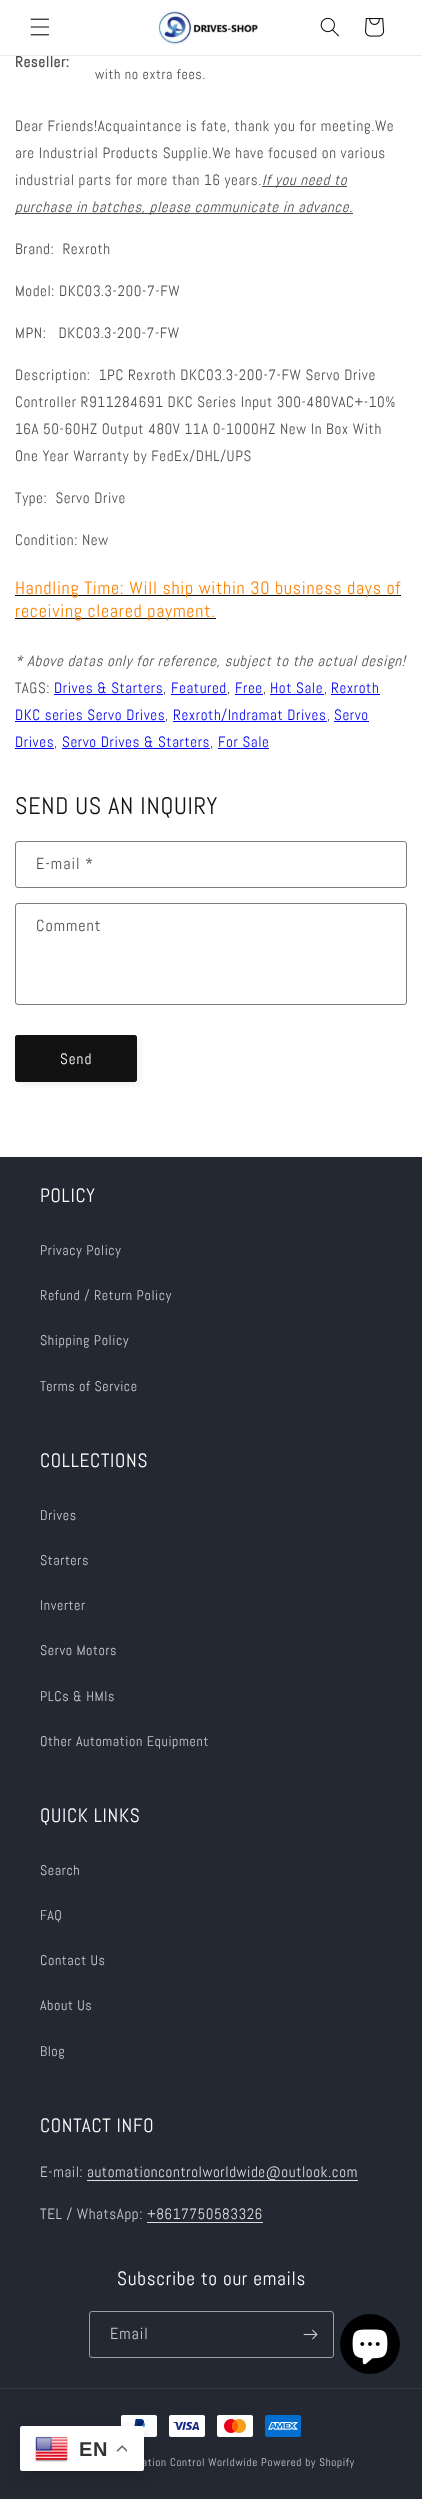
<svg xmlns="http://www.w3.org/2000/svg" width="422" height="2499">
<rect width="100%" height="100%" fill="#fff"/>
<rect y="55" width="422" height="1" fill="#ececec"/>
<image x="30" y="18" width="20" height="18" href="media/1.png"/>
<image x="158" y="10" width="100" height="37" href="media/2.png"/>
<image x="320" y="17" width="19" height="20" href="media/3.png"/>
<image x="365" y="18" width="20" height="19" href="media/4.png"/>
<text x="15" y="67" style="font-family:Abel;font-size:15px;font-weight:bold;letter-spacing:0.6px;fill:#4d4d4d">Reseller:</text>
<text x="95" y="79" style="font-family:Abel;font-size:14px;letter-spacing:0.6px;fill:#4d4d4d">with no extra fees.</text>
<text x="15" y="131" style="font-family:Abel;font-size:15px;letter-spacing:0.6px;fill:#4d4d4d">Dear Friends!Acquaintance is fate, thank you for meeting.We</text>
<text x="15" y="158" style="font-family:Abel;font-size:15px;letter-spacing:0.6px;fill:#4d4d4d">are Industrial Products Supplie.We have focused on various</text>
<text x="15" y="185" style="font-family:Abel;font-size:15px;letter-spacing:0.6px;fill:#4d4d4d">industrial parts for more than 16 years.</text>
<rect x="262" y="186" width="85" height="1" fill="#4d4d4d"/>
<text x="262" y="185" style="font-family:Abel;font-size:15px;font-style:italic;letter-spacing:0.6px;fill:#4d4d4d">If you need to</text>
<rect x="15" y="213" width="334" height="1" fill="#4d4d4d"/>
<text x="15" y="212" style="font-family:Abel;font-size:15px;font-style:italic;letter-spacing:0.6px;fill:#4d4d4d">purchase in batches, please communicate in advance.</text>
<rect x="349" y="213" width="4" height="1" fill="#4d4d4d"/>
<text x="15" y="254" style="font-family:Abel;font-size:15px;letter-spacing:0.6px;fill:#4d4d4d" xml:space="preserve">Brand:  Rexroth</text>
<text x="15" y="296" style="font-family:Abel;font-size:15px;letter-spacing:0.6px;fill:#4d4d4d">Model: DKC03.3-200-7-FW</text>
<text x="15" y="338" style="font-family:Abel;font-size:15px;letter-spacing:0.6px;fill:#4d4d4d" xml:space="preserve">MPN:   DKC03.3-200-7-FW</text>
<text x="15" y="380" style="font-family:Abel;font-size:15px;letter-spacing:0.6px;fill:#4d4d4d" xml:space="preserve">Description:  1PC Rexroth DKC03.3-200-7-FW Servo Drive</text>
<text x="15" y="407" style="font-family:Abel;font-size:15px;letter-spacing:0.6px;fill:#4d4d4d">Controller R911284691 DKC Series Input 300-480VAC+-10%</text>
<text x="15" y="434" style="font-family:Abel;font-size:15px;letter-spacing:0.6px;fill:#4d4d4d">16A 50-60HZ Output 480V 11A 0-1000HZ New In Box With</text>
<text x="15" y="461" style="font-family:Abel;font-size:15px;letter-spacing:0.6px;fill:#4d4d4d">One Year Warranty by FedEx/DHL/UPS</text>
<text x="15" y="503" style="font-family:Abel;font-size:15px;letter-spacing:0.6px;fill:#4d4d4d" xml:space="preserve">Type:  Servo Drive</text>
<text x="15" y="545" style="font-family:Abel;font-size:15px;letter-spacing:0.6px;fill:#4d4d4d">Condition: New</text>
<rect x="15" y="595" width="386" height="1" fill="#121212"/>
<text x="15" y="594" style="font-family:Abel;font-size:18px;letter-spacing:0.72px;fill:#ff8000">Handling Time: Will ship within 30 business days of</text>
<rect x="15" y="618" width="201" height="1" fill="#121212"/>
<text x="15" y="617" style="font-family:Abel;font-size:18px;letter-spacing:0.72px;fill:#ff8000">receiving cleared payment.</text>
<text x="15" y="666" style="font-family:Abel;font-size:15px;font-style:italic;letter-spacing:0.6px;fill:#4d4d4d">* Above datas only for reference, subject to the actual design!</text>
<text x="15" y="693" style="font-family:Abel;font-size:15px;letter-spacing:0.6px;fill:#4d4d4d">TAGS:</text>
<text x="54" y="693" style="font-family:Abel;font-size:15px;letter-spacing:0.6px;fill:#00e">Drives &amp; Starters</text>
<rect x="54" y="694" width="109" height="1" fill="#00e"/>
<text x="163" y="693" style="font-family:Abel;font-size:15px;letter-spacing:0.6px;fill:#4d4d4d">,</text>
<text x="171" y="693" style="font-family:Abel;font-size:15px;letter-spacing:0.6px;fill:#00e">Featured</text>
<rect x="171" y="694" width="56" height="1" fill="#00e"/>
<text x="227" y="693" style="font-family:Abel;font-size:15px;letter-spacing:0.6px;fill:#4d4d4d">,</text>
<text x="235" y="693" style="font-family:Abel;font-size:15px;letter-spacing:0.6px;fill:#00e">Free</text>
<rect x="235" y="694" width="28" height="1" fill="#00e"/>
<text x="263" y="693" style="font-family:Abel;font-size:15px;letter-spacing:0.6px;fill:#4d4d4d">,</text>
<text x="270" y="693" style="font-family:Abel;font-size:15px;letter-spacing:0.6px;fill:#00e">Hot Sale</text>
<rect x="270" y="694" width="54" height="1" fill="#00e"/>
<text x="324" y="693" style="font-family:Abel;font-size:15px;letter-spacing:0.6px;fill:#4d4d4d">,</text>
<text x="331" y="693" style="font-family:Abel;font-size:15px;letter-spacing:0.6px;fill:#00e">Rexroth</text>
<rect x="331" y="694" width="49" height="1" fill="#00e"/>
<text x="15" y="720" style="font-family:Abel;font-size:15px;letter-spacing:0.6px;fill:#00e">DKC series Servo Drives</text>
<rect x="15" y="721" width="150" height="1" fill="#00e"/>
<text x="165" y="720" style="font-family:Abel;font-size:15px;letter-spacing:0.6px;fill:#4d4d4d">,</text>
<text x="173" y="720" style="font-family:Abel;font-size:15px;letter-spacing:0.6px;fill:#00e">Rexroth/Indramat Drives</text>
<rect x="173" y="721" width="154" height="1" fill="#00e"/>
<text x="327" y="720" style="font-family:Abel;font-size:15px;letter-spacing:0.6px;fill:#4d4d4d">,</text>
<text x="334" y="720" style="font-family:Abel;font-size:15px;letter-spacing:0.6px;fill:#00e">Servo</text>
<rect x="334" y="721" width="35" height="1" fill="#00e"/>
<text x="15" y="747" style="font-family:Abel;font-size:15px;letter-spacing:0.6px;fill:#00e">Drives</text>
<rect x="15" y="748" width="39" height="1" fill="#00e"/>
<text x="54" y="747" style="font-family:Abel;font-size:15px;letter-spacing:0.6px;fill:#4d4d4d">,</text>
<text x="62" y="747" style="font-family:Abel;font-size:15px;letter-spacing:0.6px;fill:#00e">Servo Drives &amp; Starters</text>
<rect x="62" y="748" width="148" height="1" fill="#00e"/>
<text x="210" y="747" style="font-family:Abel;font-size:15px;letter-spacing:0.6px;fill:#4d4d4d">,</text>
<text x="218" y="747" style="font-family:Abel;font-size:15px;letter-spacing:0.6px;fill:#00e">For Sale</text>
<rect x="218" y="748" width="51" height="1" fill="#00e"/>
<text x="15" y="814" style="font-family:Abel;font-size:24px;letter-spacing:0.72px;fill:#121212">SEND US AN INQUIRY</text>
<rect x="15.5" y="841.5" width="391" height="46" rx="2.5" fill="none" stroke="#1212128c"/>
<text x="36" y="869" style="font-family:Abel;font-size:16px;letter-spacing:1px;fill:#4d4d4d">E-mail *</text>
<rect x="15.5" y="903.5" width="391" height="101" rx="2.5" fill="none" stroke="#1212128c"/>
<text x="36" y="931" style="font-family:Abel;font-size:16px;letter-spacing:1px;fill:#4d4d4d">Comment</text>
<rect x="19" y="1039" width="122" height="47" rx="3" fill="#1212120d" filter="blur(2.5px)"/>
<rect x="15" y="1035" width="122" height="47" rx="3" fill="#121212"/>
<rect x="15.5" y="1035.5" width="121" height="46" rx="2.5" fill="none" stroke="#121212"/>
<text x="60" y="1064" style="font-family:Abel;font-size:15px;letter-spacing:1px;fill:#fff">Send</text>
<rect y="1157" width="422" height="1342" fill="#242833"/>
<text x="40" y="1202" style="font-family:Abel;font-size:19.25px;letter-spacing:0.72px;fill:#fff">POLICY</text>
<text x="40" y="1255" style="font-family:Abel;font-size:14px;letter-spacing:0.6px;fill:#c8c9cc">Privacy Policy</text>
<text x="40" y="1300" style="font-family:Abel;font-size:14px;letter-spacing:0.6px;fill:#c8c9cc">Refund / Return Policy</text>
<text x="40" y="1345" style="font-family:Abel;font-size:14px;letter-spacing:0.6px;fill:#c8c9cc">Shipping Policy</text>
<text x="40" y="1391" style="font-family:Abel;font-size:14px;letter-spacing:0.6px;fill:#c8c9cc">Terms of Service</text>
<text x="40" y="1467" style="font-family:Abel;font-size:19.25px;letter-spacing:0.72px;fill:#fff">COLLECTIONS</text>
<text x="40" y="1520" style="font-family:Abel;font-size:14px;letter-spacing:0.6px;fill:#c8c9cc">Drives</text>
<text x="40" y="1565" style="font-family:Abel;font-size:14px;letter-spacing:0.6px;fill:#c8c9cc">Starters</text>
<text x="40" y="1610" style="font-family:Abel;font-size:14px;letter-spacing:0.6px;fill:#c8c9cc">Inverter</text>
<text x="40" y="1655" style="font-family:Abel;font-size:14px;letter-spacing:0.6px;fill:#c8c9cc">Servo Motors</text>
<text x="40" y="1701" style="font-family:Abel;font-size:14px;letter-spacing:0.6px;fill:#c8c9cc">PLCs &amp; HMIs</text>
<text x="40" y="1746" style="font-family:Abel;font-size:14px;letter-spacing:0.6px;fill:#c8c9cc">Other Automation Equipment</text>
<text x="40" y="1822" style="font-family:Abel;font-size:19.25px;letter-spacing:0.72px;fill:#fff">QUICK LINKS</text>
<text x="40" y="1875" style="font-family:Abel;font-size:14px;letter-spacing:0.6px;fill:#c8c9cc">Search</text>
<text x="40" y="1920" style="font-family:Abel;font-size:14px;letter-spacing:0.6px;fill:#c8c9cc">FAQ</text>
<text x="40" y="1965" style="font-family:Abel;font-size:14px;letter-spacing:0.6px;fill:#c8c9cc">Contact Us</text>
<text x="40" y="2010" style="font-family:Abel;font-size:14px;letter-spacing:0.6px;fill:#c8c9cc">About Us</text>
<text x="40" y="2056" style="font-family:Abel;font-size:14px;letter-spacing:0.6px;fill:#c8c9cc">Blog</text>
<text x="40" y="2132" style="font-family:Abel;font-size:19.25px;letter-spacing:0.72px;fill:#fff">CONTACT INFO</text>
<text x="40" y="2177" style="font-family:Abel;font-size:15px;letter-spacing:0.6px;fill:#c8c9cc">E-mail:</text>
<rect x="87" y="2180" width="271" height="1" fill="#dedfe0"/>
<text x="87" y="2177" style="font-family:Abel;font-size:15px;letter-spacing:0.6px;fill:#dedfe0">automationcontrolworldwide@outlook.com</text>
<text x="40" y="2219" style="font-family:Abel;font-size:15px;letter-spacing:0.6px;fill:#c8c9cc">TEL / WhatsApp:</text>
<text x="147" y="2219" style="font-family:Abel;font-size:15px;letter-spacing:0.6px;fill:#dedfe0">+8617750583326</text>
<rect x="147" y="2222" width="116" height="1" fill="#dedfe0"/>
<text x="117" y="2285" style="font-family:Abel;font-size:19.25px;letter-spacing:0.72px;fill:#fff">Subscribe to our emails</text>
<rect x="89.5" y="2311.5" width="244" height="46" rx="2.5" fill="none" stroke="#9c9ea3"/>
<text x="110" y="2339" style="font-family:Abel;font-size:16px;letter-spacing:1px;fill:#c8c9cc">Email</text>
<image x="303" y="2329" width="15" height="11" href="media/5.png"/>
<rect y="2388" width="422" height="1" fill="#363943"/>
<image x="121" y="2415" width="36" height="22" href="media/6.png"/>
<image x="169" y="2415" width="36" height="22" href="media/7.png"/>
<image x="217" y="2415" width="36" height="22" href="media/8.png"/>
<image x="265" y="2415" width="36" height="22" href="media/9.png"/>
<text x="142" y="2466" style="font-family:Abel;font-size:11px;letter-spacing:0.7px;fill:#c8c9cc">ation Control Worldwide Powered by Shopify</text>
<circle cx="370" cy="2344" r="30" fill="#000"/>
<image x="352" y="2329" width="36" height="36" href="media/10.png"/>
<rect x="20" y="2431" width="124" height="45" rx="2" fill="#00000026" filter="blur(7.5px)"/>
<rect x="20" y="2426" width="124" height="45" rx="2" fill="#fff"/>
<image x="35" y="2436" width="33" height="26" href="media/11.png"/>
<text x="79" y="2456" style="font-family:Liberation Sans;font-size:20px;font-weight:bold;letter-spacing:0.6px;fill:#333">EN</text>
<image x="116" y="2445" width="11" height="7" href="media/12.png"/>
</svg>
